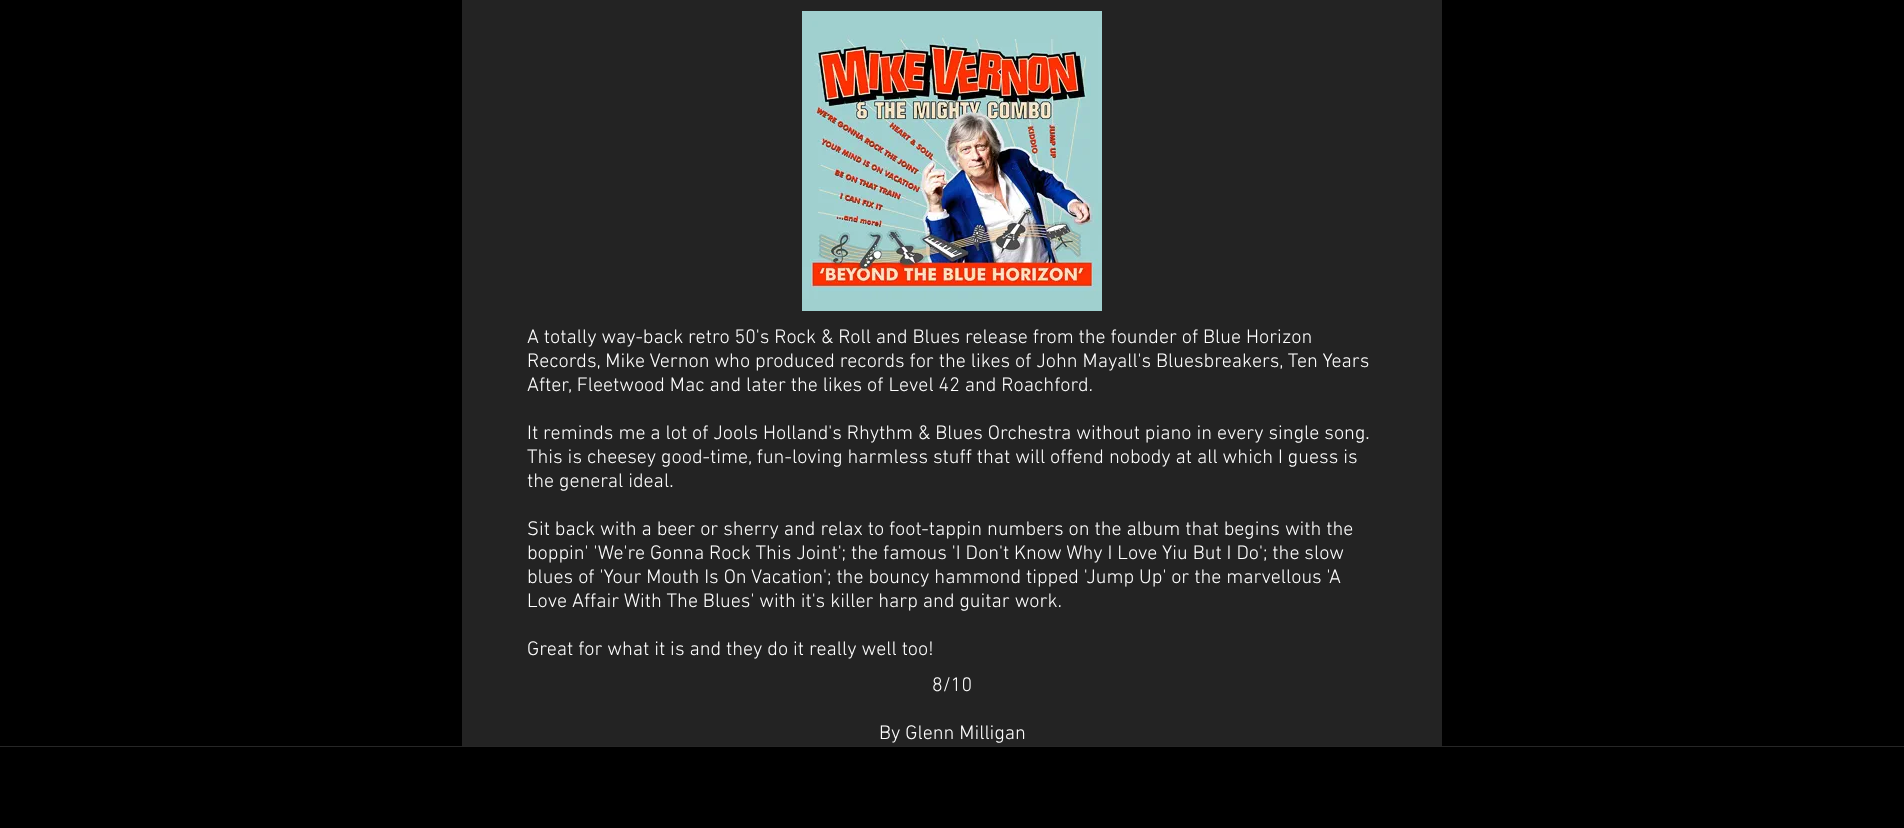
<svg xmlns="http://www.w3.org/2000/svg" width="1904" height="828">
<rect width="100%" height="100%" fill="#000"/>
<rect x="462" width="980" height="746" fill="#232323"/>
<image x="802" y="11" width="300" height="300" href="media/1.png"/>
<text x="527" y="343" style="font-family:'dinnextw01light';font-size:20px;font-weight:300;fill:#fff">A totally way-back retro 50's Rock &amp; Roll and Blues release from the founder of Blue Horizon</text>
<text x="527" y="367" style="font-family:'dinnextw01light';font-size:20px;font-weight:300;fill:#fff">Records, Mike Vernon who produced records for the likes of John Mayall's Bluesbreakers, Ten Years</text>
<text x="527" y="391" style="font-family:'dinnextw01light';font-size:20px;font-weight:300;fill:#fff">After, Fleetwood Mac and later the likes of Level 42 and Roachford.</text>
<text x="527" y="439" style="font-family:'dinnextw01light';font-size:20px;font-weight:300;fill:#fff">It reminds me a lot of Jools Holland's Rhythm &amp; Blues Orchestra without piano in every single song.</text>
<text x="527" y="463" style="font-family:'dinnextw01light';font-size:20px;font-weight:300;fill:#fff">This is cheesey good-time, fun-loving harmless stuff that will offend nobody at all which I guess is</text>
<text x="527" y="487" style="font-family:'dinnextw01light';font-size:20px;font-weight:300;fill:#fff">the general ideal.</text>
<text x="527" y="535" style="font-family:'dinnextw01light';font-size:20px;font-weight:300;fill:#fff">Sit back with a beer or sherry and relax to foot-tappin numbers on the album that begins with the</text>
<text x="527" y="559" style="font-family:'dinnextw01light';font-size:20px;font-weight:300;fill:#fff">boppin' 'We're Gonna Rock This Joint'; the famous 'I Don't Know Why I Love Yiu But I Do'; the slow</text>
<text x="527" y="583" style="font-family:'dinnextw01light';font-size:20px;font-weight:300;fill:#fff">blues of 'Your Mouth Is On Vacation'; the bouncy hammond tipped 'Jump Up' or the marvellous 'A</text>
<text x="527" y="607" style="font-family:'dinnextw01light';font-size:20px;font-weight:300;fill:#fff">Love Affair With The Blues' with it's killer harp and guitar work.</text>
<text x="527" y="655" style="font-family:'dinnextw01light';font-size:20px;font-weight:300;fill:#fff">Great for what it is and they do it really well too!</text>
<text x="932" y="691" style="font-family:'dinnextw01light';font-size:20px;font-weight:300;fill:#fff">8/10</text>
<text x="879" y="739" style="font-family:'dinnextw01light';font-size:20px;font-weight:300;fill:#fff">By Glenn Milligan</text>
<rect y="746" width="1904" height="1" fill="#262626"/>
</svg>
